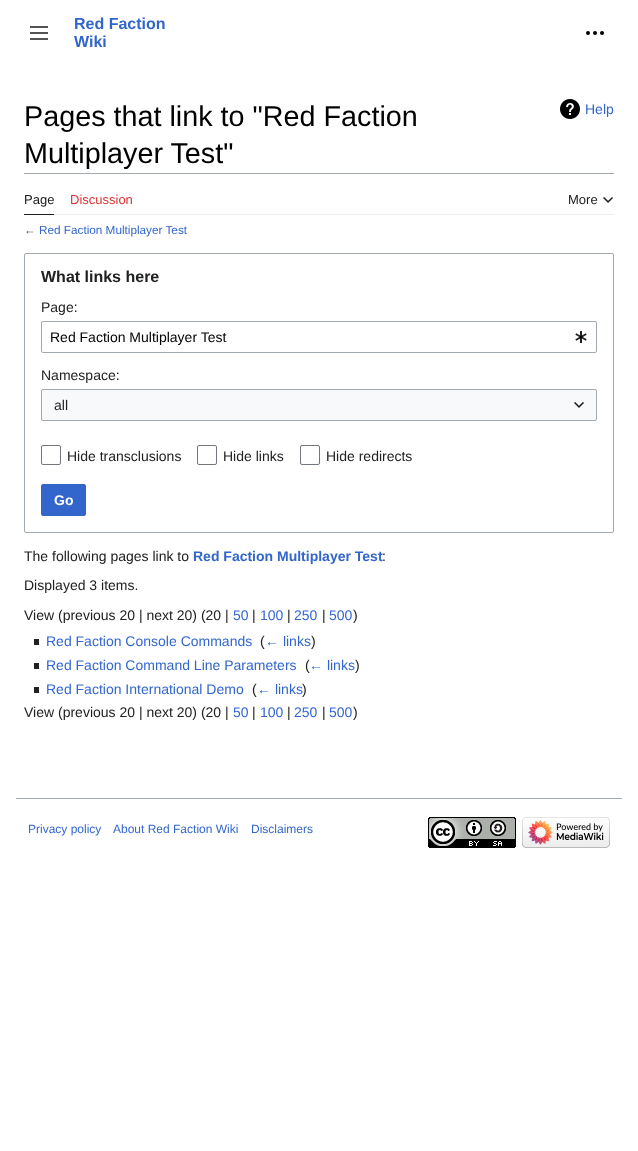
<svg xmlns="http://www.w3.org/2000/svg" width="638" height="1151">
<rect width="100%" height="100%" fill="#fff"/>
<image x="30" y="26" width="18" height="14" href="media/1.png"/>
<text x="74" y="29" style="font-family:Liberation Sans;font-size:16px;font-weight:bold;fill:#36c">Red Faction</text>
<text x="74" y="47" style="font-family:Liberation Sans;font-size:16px;font-weight:bold;fill:#36c">Wiki</text>
<image x="586" y="31" width="18" height="4" href="media/2.png"/>
<rect x="24" y="173" width="590" height="1" fill="#a2a9b1"/>
<text x="24" y="126" style="font-family:Liberation Sans;font-size:28.75px;fill:#000">Pages that link to "Red Faction</text>
<text x="24" y="163" style="font-family:Liberation Sans;font-size:28.75px;fill:#000">Multiplayer Test"</text>
<image x="560" y="99" width="20" height="20" href="media/3.png"/>
<text x="585" y="114" style="font-family:Liberation Sans;font-size:14px;fill:#36c">Help</text>
<rect x="54" y="214" width="560" height="1" fill="#eaecf0"/>
<rect x="24" y="214" width="30" height="1" fill="#202122"/>
<text x="24" y="204" style="font-family:Liberation Sans;font-size:13px;fill:#202122">Page</text>
<text x="70" y="204" style="font-family:Liberation Sans;font-size:13px;fill:#d33">Discussion</text>
<text x="568" y="204" style="font-family:Liberation Sans;font-size:13px;fill:#202122">More</text>
<image x="603" y="197" width="10" height="6" href="media/4.png"/>
<text x="24" y="234" style="font-family:Liberation Sans;font-size:11.75px;fill:#54595d">←</text>
<text x="39" y="234" style="font-family:Liberation Sans;font-size:11.75px;fill:#36c">Red Faction Multiplayer Test</text>
<rect x="24.5" y="253.5" width="589" height="279" rx="1.5" fill="none" stroke="#a2a9b1"/>
<text x="41" y="282" style="font-family:Liberation Sans;font-size:16px;font-weight:bold;fill:#202122">What links here</text>
<text x="41" y="312" style="font-family:Liberation Sans;font-size:14px;fill:#202122">Page:</text>
<rect x="41.5" y="321.5" width="555" height="31" rx="1.5" fill="none" stroke="#a2a9b1"/>
<text x="50" y="342" style="font-family:Liberation Sans;font-size:14px;fill:#000">Red Faction Multiplayer Test</text>
<image x="575" y="331" width="12" height="12" href="media/5.png"/>
<text x="41" y="380" style="font-family:Liberation Sans;font-size:14px;fill:#202122">Namespace:</text>
<rect x="41" y="389" width="556" height="32" fill="#f8f9fa"/>
<rect x="41.5" y="389.5" width="555" height="31" rx="1.5" fill="none" stroke="#a2a9b1"/>
<text x="54" y="410" style="font-family:Liberation Sans;font-size:14px;fill:#202122">all</text>
<image x="574" y="402" width="10" height="6" href="media/6.png"/>
<rect x="41.5" y="445.5" width="19" height="19" rx="1.5" fill="none" stroke="#72777d"/>
<text x="67" y="461" style="font-family:Liberation Sans;font-size:14px;fill:#202122">Hide transclusions</text>
<rect x="197.5" y="445.5" width="19" height="19" rx="1.5" fill="none" stroke="#72777d"/>
<text x="223" y="461" style="font-family:Liberation Sans;font-size:14px;fill:#202122">Hide links</text>
<rect x="300.5" y="445.5" width="19" height="19" rx="1.5" fill="none" stroke="#72777d"/>
<text x="326" y="461" style="font-family:Liberation Sans;font-size:14px;fill:#202122">Hide redirects</text>
<rect x="41.5" y="484.5" width="44" height="31" rx="1.5" fill="#36c" stroke="#36c"/>
<text x="54" y="505" style="font-family:Liberation Sans;font-size:14px;font-weight:bold;fill:#fff">Go</text>
<text x="24" y="561" style="font-family:Liberation Sans;font-size:14px;fill:#202122">The following pages link to</text>
<text x="193" y="561" style="font-family:Liberation Sans;font-size:14px;font-weight:bold;fill:#36c">Red Faction Multiplayer Test</text>
<text x="382" y="561" style="font-family:Liberation Sans;font-size:14px;fill:#202122">:</text>
<text x="24" y="590" style="font-family:Liberation Sans;font-size:14px;fill:#202122">Displayed 3 items.</text>
<text x="24" y="620" style="font-family:Liberation Sans;font-size:14px;fill:#202122">View (previous 20 | next 20) (20 |</text>
<text x="233" y="620" style="font-family:Liberation Sans;font-size:14px;fill:#36c">50</text>
<text x="252" y="620" style="font-family:Liberation Sans;font-size:14px;fill:#202122">|</text>
<text x="260" y="620" style="font-family:Liberation Sans;font-size:14px;fill:#36c">100</text>
<text x="287" y="620" style="font-family:Liberation Sans;font-size:14px;fill:#202122">|</text>
<text x="294" y="620" style="font-family:Liberation Sans;font-size:14px;fill:#36c">250</text>
<text x="322" y="620" style="font-family:Liberation Sans;font-size:14px;fill:#202122">|</text>
<text x="329" y="620" style="font-family:Liberation Sans;font-size:14px;fill:#36c">500</text>
<text x="353" y="620" style="font-family:Liberation Sans;font-size:14px;fill:#202122">)</text>
<rect x="34" y="639" width="5" height="6" fill="#202122"/>
<text x="46" y="646" style="font-family:Liberation Sans;font-size:14px;fill:#36c">Red Faction Console Commands</text>
<text x="260" y="646" style="font-family:Liberation Sans;font-size:14px;fill:#202122">(</text>
<text x="265" y="646" style="font-family:Liberation Sans;font-size:14px;fill:#36c">← links</text>
<text x="311" y="646" style="font-family:Liberation Sans;font-size:14px;fill:#202122">)</text>
<rect x="34" y="663" width="5" height="6" fill="#202122"/>
<text x="46" y="670" style="font-family:Liberation Sans;font-size:14px;fill:#36c">Red Faction Command Line Parameters</text>
<text x="305" y="670" style="font-family:Liberation Sans;font-size:14px;fill:#202122">(</text>
<text x="309" y="670" style="font-family:Liberation Sans;font-size:14px;fill:#36c">← links</text>
<text x="355" y="670" style="font-family:Liberation Sans;font-size:14px;fill:#202122">)</text>
<rect x="34" y="687" width="5" height="6" fill="#202122"/>
<text x="46" y="694" style="font-family:Liberation Sans;font-size:14px;fill:#36c">Red Faction International Demo</text>
<text x="252" y="694" style="font-family:Liberation Sans;font-size:14px;fill:#202122">(</text>
<text x="257" y="694" style="font-family:Liberation Sans;font-size:14px;fill:#36c">← links</text>
<text x="302" y="694" style="font-family:Liberation Sans;font-size:14px;fill:#202122">)</text>
<text x="24" y="717" style="font-family:Liberation Sans;font-size:14px;fill:#202122">View (previous 20 | next 20) (20 |</text>
<text x="233" y="717" style="font-family:Liberation Sans;font-size:14px;fill:#36c">50</text>
<text x="252" y="717" style="font-family:Liberation Sans;font-size:14px;fill:#202122">|</text>
<text x="260" y="717" style="font-family:Liberation Sans;font-size:14px;fill:#36c">100</text>
<text x="287" y="717" style="font-family:Liberation Sans;font-size:14px;fill:#202122">|</text>
<text x="294" y="717" style="font-family:Liberation Sans;font-size:14px;fill:#36c">250</text>
<text x="322" y="717" style="font-family:Liberation Sans;font-size:14px;fill:#202122">|</text>
<text x="329" y="717" style="font-family:Liberation Sans;font-size:14px;fill:#36c">500</text>
<text x="353" y="717" style="font-family:Liberation Sans;font-size:14px;fill:#202122">)</text>
<rect x="16" y="798" width="606" height="1" fill="#a2a9b1"/>
<text x="28" y="833" style="font-family:Liberation Sans;font-size:12px;fill:#36c">Privacy policy</text>
<text x="113" y="833" style="font-family:Liberation Sans;font-size:12px;fill:#36c">About Red Faction Wiki</text>
<text x="251" y="833" style="font-family:Liberation Sans;font-size:12px;fill:#36c">Disclaimers</text>
<image x="428" y="817" width="88" height="31" href="media/7.png"/>
<image x="522" y="817" width="88" height="31" href="media/8.png"/>
</svg>
